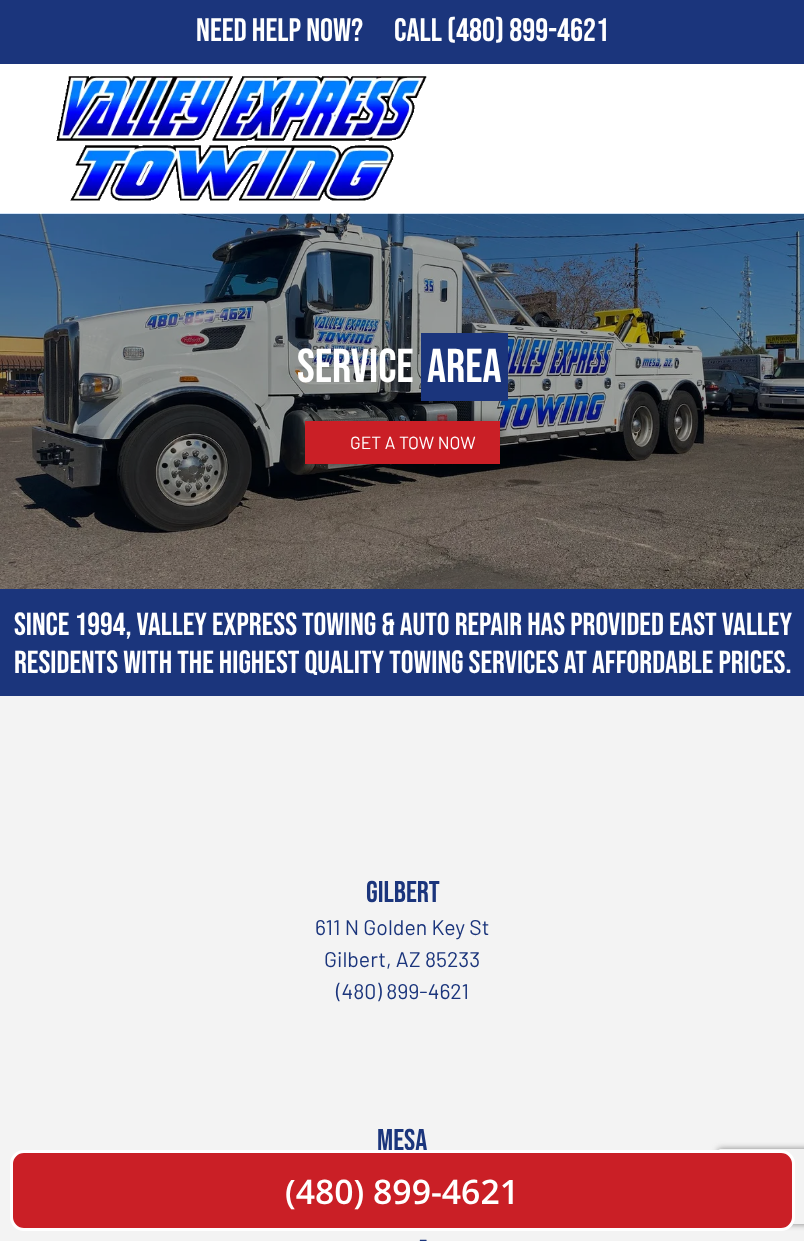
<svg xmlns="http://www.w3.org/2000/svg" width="804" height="1241">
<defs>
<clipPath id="clip1"><path d="M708 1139h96v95h-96zm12.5 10h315c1.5 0 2.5 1 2.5 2.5v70c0 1.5-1 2.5-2.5 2.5h-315c-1.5 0-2.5-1-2.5-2.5v-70c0-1.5 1-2.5 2.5-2.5z" clip-rule="evenodd"/></clipPath>
</defs>
<rect width="100%" height="100%" fill="#fff"/>
<rect width="804" height="64" fill="#1b357c"/>
<text x="196" y="41" style="font-family:Bebas Neue;font-size:32.5px;fill:#fff">Need Help Now?</text>
<text x="394" y="41" style="font-family:Bebas Neue;font-size:32.5px;fill:#fff">Call (480) 899-4621</text>
<image x="56" y="76" width="371" height="125" href="media/1.png"/>
<image x="0" y="213" width="804" height="376" href="media/2.png"/>
<rect y="589" width="804" height="107" fill="#1b357c"/>
<text x="297" y="382" style="font-family:Bebas Neue;font-size:47.5px;fill:#fff">Service</text>
<rect x="421" y="333" width="87" height="68" fill="#1b357c"/>
<text x="427" y="382" style="font-family:Bebas Neue;font-size:47.5px;fill:#fff">Area</text>
<rect x="305" y="421" width="195" height="43" fill="#00000080" filter="blur(6px)"/>
<rect x="305" y="421" width="195" height="43" fill="#ca1f26"/>
<text x="350" y="449" style="font-family:Barlow;font-size:17.5px;fill:#fff">GET A TOW NOW</text>
<text x="14" y="635" style="font-family:Bebas Neue;font-size:31.9px;fill:#fff">Since 1994, Valley Express Towing &amp; Auto Repair has provided East Valley</text>
<text x="14" y="673" style="font-family:Bebas Neue;font-size:31.9px;fill:#fff">residents with the highest quality towing services at affordable prices.</text>
<rect y="696" width="804" height="545" fill="#f3f3f3"/>
<text x="366" y="902" style="font-family:Bebas Neue;font-size:30px;fill:#1b357c">Gilbert</text>
<text x="315" y="935" style="font-family:Barlow;font-size:21.25px;fill:#1b357c">611 N Golden Key St</text>
<text x="324" y="967" style="font-family:Barlow;font-size:21.25px;fill:#1b357c">Gilbert, AZ 85233</text>
<text x="336" y="999" style="font-family:Barlow;font-size:21.25px;fill:#1b357c">(480) 899-4621</text>
<text x="377" y="1150" style="font-family:Bebas Neue;font-size:30px;fill:#1b357c">Mesa</text>
<text x="419" y="1247" style="font-family:Barlow;font-size:21.25px;fill:#1b357c">-</text>
<g clip-path="url(#clip1)">
<rect x="718" y="1149" width="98" height="75" rx="2.5" fill="#808080" filter="blur(3px)"/>
</g>
<rect x="11.5" y="1151.5" width="782" height="78" rx="12.5" fill="#ca1f26" stroke="#fff" stroke-width="3"/>
<text x="285" y="1204" style="font-family:Open Sans;font-size:33.75px;font-weight:600;fill:#fff">(480) 899-4621</text>
</svg>
